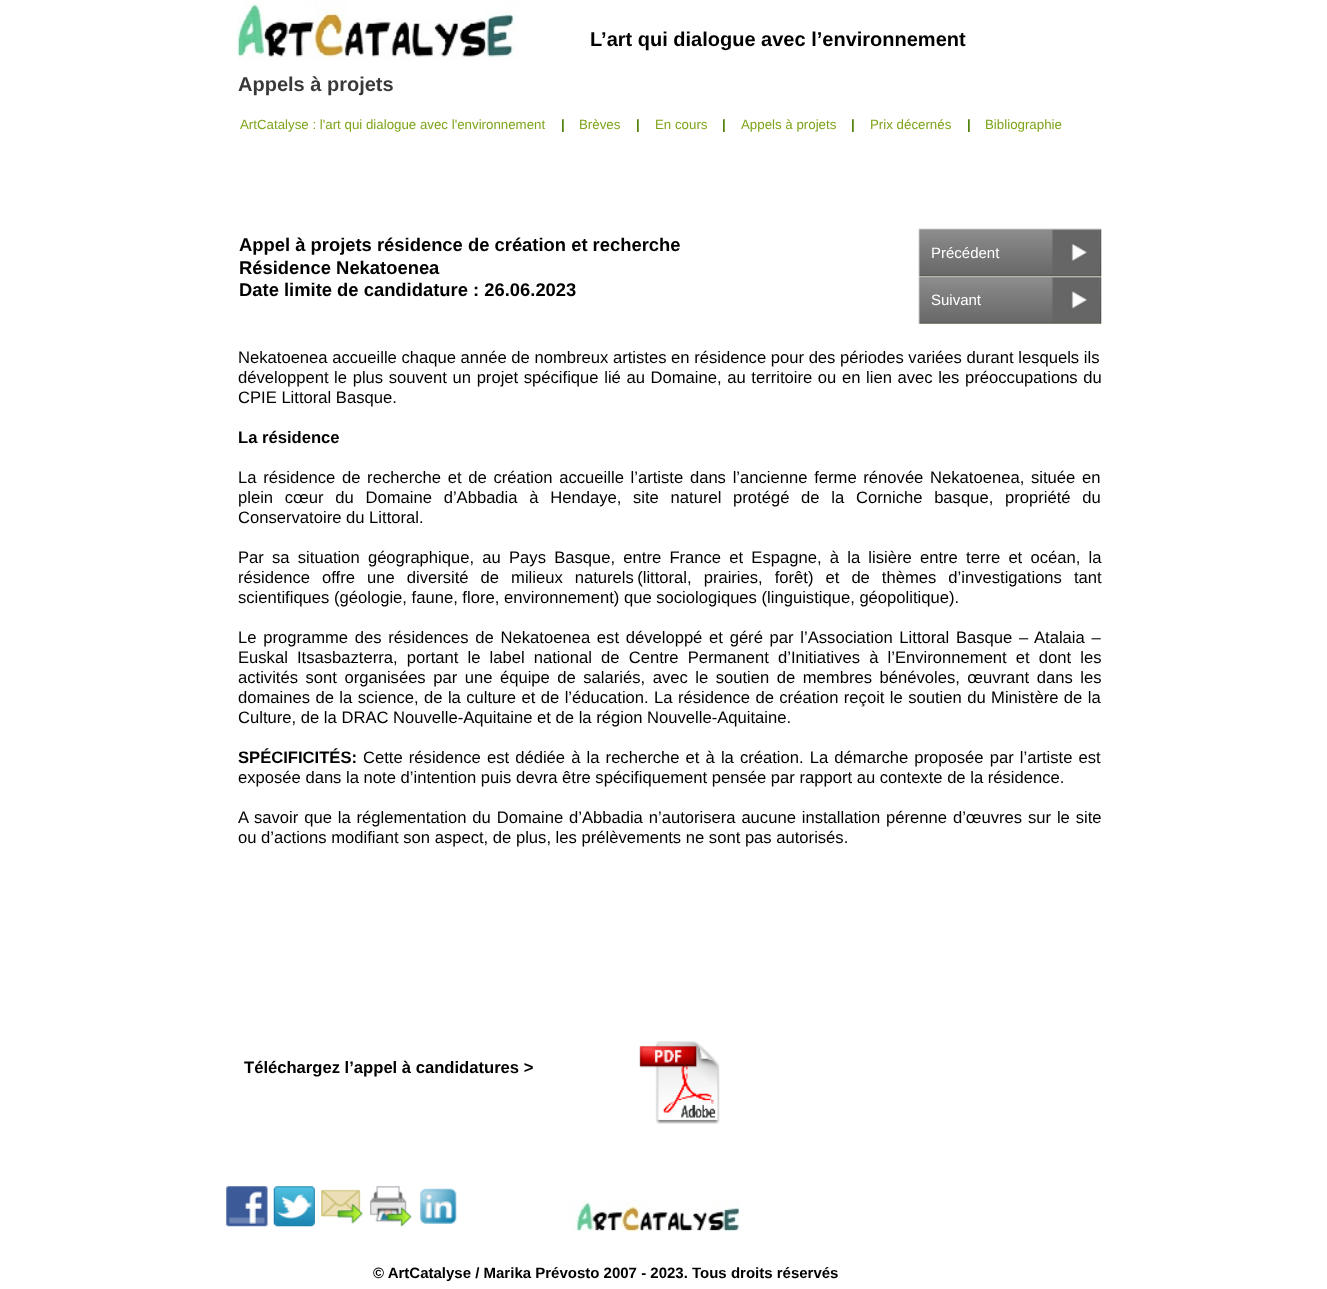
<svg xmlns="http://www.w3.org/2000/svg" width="1327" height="1289">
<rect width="100%" height="100%" fill="#fff"/>
<image x="237" y="0" width="281" height="60" href="media/1.png"/>
<text x="590" y="46" style="font-family:Liberation Sans;font-size:20px;font-weight:bold;fill:#000">L’art qui dialogue avec l’environnement</text>
<text x="238" y="91" style="font-family:Liberation Sans;font-size:20px;font-weight:bold;fill:#393939">Appels à projets</text>
<text x="240" y="129" style="font-family:Liberation Sans;font-size:13.3px;fill:#7ea41a">ArtCatalyse : l'art qui dialogue avec l'environnement</text>
<text x="561" y="129" style="font-family:Liberation Sans;font-size:13.3px;font-weight:bold;fill:#51800c">|</text>
<text x="579" y="129" style="font-family:Liberation Sans;font-size:13.3px;fill:#7ea41a">Brèves</text>
<text x="636" y="129" style="font-family:Liberation Sans;font-size:13.3px;font-weight:bold;fill:#51800c">|</text>
<text x="655" y="129" style="font-family:Liberation Sans;font-size:13.3px;fill:#7ea41a">En cours</text>
<text x="722" y="129" style="font-family:Liberation Sans;font-size:13.3px;font-weight:bold;fill:#51800c">|</text>
<text x="741" y="129" style="font-family:Liberation Sans;font-size:13.3px;fill:#7ea41a">Appels à projets</text>
<text x="851" y="129" style="font-family:Liberation Sans;font-size:13.3px;font-weight:bold;fill:#51800c">|</text>
<text x="870" y="129" style="font-family:Liberation Sans;font-size:13.3px;fill:#7ea41a">Prix décernés</text>
<text x="967" y="129" style="font-family:Liberation Sans;font-size:13.3px;font-weight:bold;fill:#51800c">|</text>
<text x="985" y="129" style="font-family:Liberation Sans;font-size:13.3px;fill:#7ea41a">Bibliographie</text>
<text x="239" y="251" style="font-family:Liberation Sans;font-size:18.4px;font-weight:bold;fill:#000">Appel à projets résidence de création et recherche</text>
<text x="239" y="274" style="font-family:Liberation Sans;font-size:18.4px;font-weight:bold;fill:#000">Résidence Nekatoenea</text>
<text x="239" y="296" style="font-family:Liberation Sans;font-size:18.4px;font-weight:bold;fill:#000">Date limite de candidature : 26.06.2023</text>
<image x="918" y="228" width="184" height="49" href="media/2.png"/>
<text x="931" y="258" style="font-family:Liberation Sans;font-size:15px;fill:#fff">Précédent</text>
<image x="918" y="276" width="184" height="48" href="media/3.png"/>
<text x="931" y="305" style="font-family:Liberation Sans;font-size:15px;fill:#fff">Suivant</text>
<text x="238" y="363" style="font-family:Liberation Sans;font-size:16.62px;fill:#000">Nekatoenea accueille chaque année de nombreux artistes en résidence pour des périodes variées durant lesquels ils</text>
<text x="238" y="383" word-spacing="1" style="font-family:Liberation Sans;font-size:16.62px;fill:#000">développent le plus souvent un projet spécifique lié au Domaine, au territoire ou en lien avec les préoccupations du</text>
<text x="238" y="403" style="font-family:Liberation Sans;font-size:16.62px;fill:#000">CPIE Littoral Basque.</text>
<text x="238" y="443" style="font-family:Liberation Sans;font-size:16.62px;font-weight:bold;fill:#000">La résidence</text>
<text x="238" y="483" word-spacing="2.1" style="font-family:Liberation Sans;font-size:16.62px;fill:#000">La résidence de recherche et de création accueille l’artiste dans l’ancienne ferme rénovée Nekatoenea, située en</text>
<text x="238" y="503" word-spacing="7.1" style="font-family:Liberation Sans;font-size:16.62px;fill:#000">plein cœur du Domaine d’Abbadia à Hendaye, site naturel protégé de la Corniche basque, propriété du</text>
<text x="238" y="523" style="font-family:Liberation Sans;font-size:16.62px;fill:#000">Conservatoire du Littoral.</text>
<text x="238" y="563" word-spacing="3.6" style="font-family:Liberation Sans;font-size:16.62px;fill:#000">Par sa situation géographique, au Pays Basque, entre France et Espagne, à la lisière entre terre et océan, la</text>
<text x="238" y="583" word-spacing="7.4" style="font-family:Liberation Sans;font-size:16.62px;fill:#000">résidence offre une diversité de milieux naturels (littoral, prairies, forêt) et de thèmes d’investigations tant</text>
<text x="238" y="603" style="font-family:Liberation Sans;font-size:16.62px;fill:#000">scientifiques (géologie, faune, flore, environnement) que sociologiques (linguistique, géopolitique).</text>
<text x="238" y="643" word-spacing="2.1" style="font-family:Liberation Sans;font-size:16.62px;fill:#000">Le programme des résidences de Nekatoenea est développé et géré par l’Association Littoral Basque – Atalaia –</text>
<text x="238" y="663" word-spacing="4.5" style="font-family:Liberation Sans;font-size:16.62px;fill:#000">Euskal Itsasbazterra, portant le label national de Centre Permanent d’Initiatives à l’Environnement et dont les</text>
<text x="238" y="683" word-spacing="2.9" style="font-family:Liberation Sans;font-size:16.62px;fill:#000">activités sont organisées par une équipe de salariés, avec le soutien de membres bénévoles, œuvrant dans les</text>
<text x="238" y="703" word-spacing="0.8" style="font-family:Liberation Sans;font-size:16.62px;fill:#000">domaines de la science, de la culture et de l’éducation. La résidence de création reçoit le soutien du Ministère de la</text>
<text x="238" y="723" style="font-family:Liberation Sans;font-size:16.62px;fill:#000">Culture, de la DRAC Nouvelle-Aquitaine et de la région Nouvelle-Aquitaine.</text>
<text x="238" y="763" style="font-family:Liberation Sans;font-size:16.62px;font-weight:bold;fill:#000">SPÉCIFICITÉS:</text>
<text x="363" y="763" word-spacing="1.5" style="font-family:Liberation Sans;font-size:16.62px;fill:#000">Cette résidence est dédiée à la recherche et à la création. La démarche proposée par l’artiste est</text>
<text x="238" y="783" style="font-family:Liberation Sans;font-size:16.62px;fill:#000">exposée dans la note d’intention puis devra être spécifiquement pensée par rapport au contexte de la résidence.</text>
<text x="238" y="823" word-spacing="1.25" style="font-family:Liberation Sans;font-size:16.62px;fill:#000">A savoir que la réglementation du Domaine d’Abbadia n’autorisera aucune installation pérenne d’œuvres sur le site</text>
<text x="238" y="843" style="font-family:Liberation Sans;font-size:16.62px;fill:#000">ou d’actions modifiant son aspect, de plus, les prélèvements ne sont pas autorisés.</text>
<text x="244" y="1073" style="font-family:Liberation Sans;font-size:16.62px;font-weight:bold;fill:#000">Téléchargez l’appel à candidatures &gt;</text>
<image x="639" y="1041" width="81" height="83" href="media/4.png"/>
<image x="226" y="1186" width="42" height="41" href="media/5.png"/>
<image x="273" y="1186" width="42" height="41" href="media/6.png"/>
<image x="321" y="1189" width="42" height="35" href="media/7.png"/>
<image x="370" y="1186" width="42" height="41" href="media/8.png"/>
<image x="420" y="1188" width="37" height="36" href="media/9.png"/>
<image x="570" y="1200" width="172" height="32" href="media/10.png"/>
<text x="373" y="1278" style="font-family:Liberation Sans;font-size:15px;font-weight:bold;fill:#000">© ArtCatalyse / Marika Prévosto 2007 - 2023. Tous droits réservés</text>
</svg>
